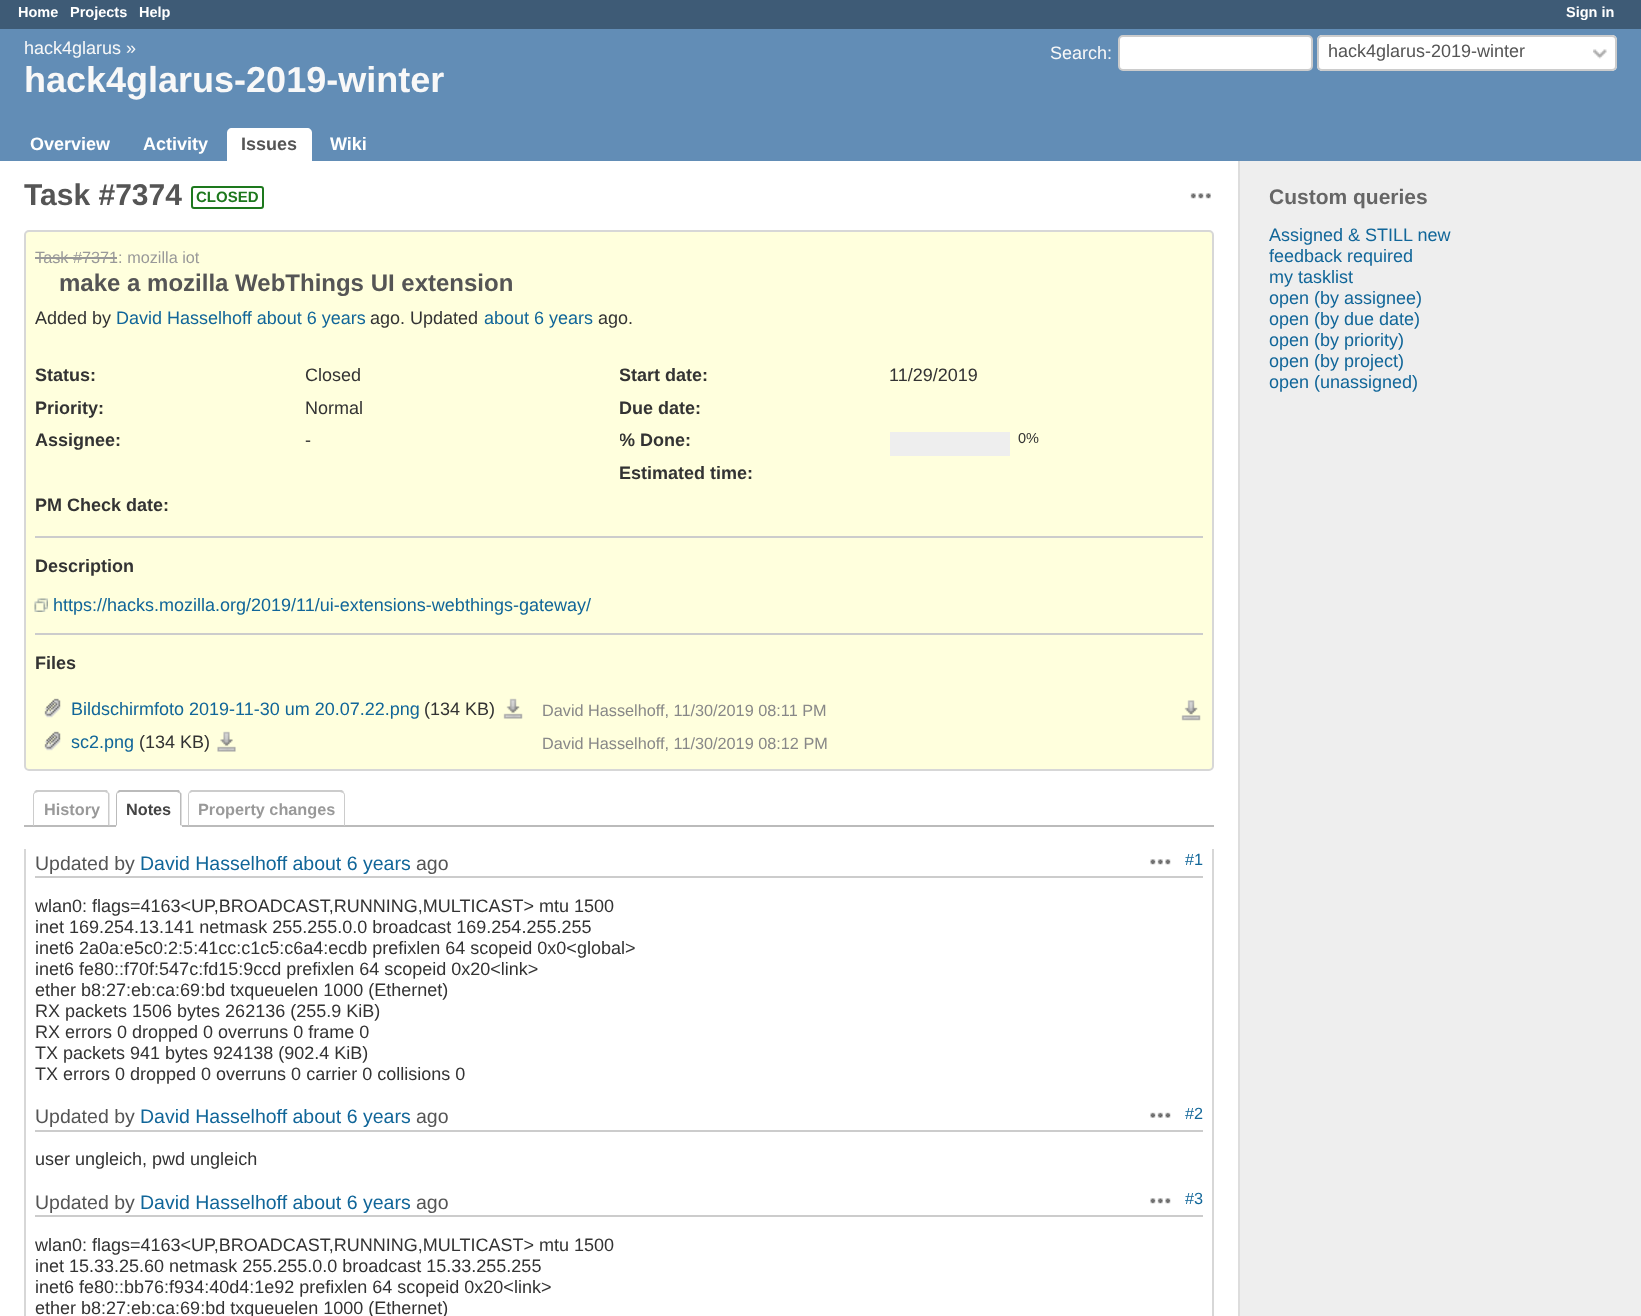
<svg xmlns="http://www.w3.org/2000/svg" width="1641" height="1316">
<defs>
<clipPath id="clip1"><rect x="620" y="365" width="255" height="21"/></clipPath>
<clipPath id="clip2"><rect x="620" y="431" width="255" height="21"/></clipPath>
</defs>
<rect width="100%" height="100%" fill="#fff"/>
<rect width="1641" height="29" fill="#3e5b76"/>
<text x="18" y="17" style="font-family:Liberation Sans;font-size:14.5px;font-weight:bold;fill:#fff">Home</text>
<text x="70" y="17" style="font-family:Liberation Sans;font-size:14.5px;font-weight:bold;fill:#fff">Projects</text>
<text x="139" y="17" style="font-family:Liberation Sans;font-size:14.5px;font-weight:bold;fill:#fff">Help</text>
<text x="1566" y="17" style="font-family:Liberation Sans;font-size:14.5px;font-weight:bold;fill:#fff">Sign in</text>
<rect y="29" width="1641" height="132" fill="#628db6"/>
<text x="24" y="54" style="font-family:Liberation Sans;font-size:18px;fill:#f8f8f8">hack4glarus »</text>
<text x="24" y="92" style="font-family:Liberation Sans;font-size:36px;font-weight:bold;fill:#f8f8f8">hack4glarus-2019-winter</text>
<text x="1050" y="59" style="font-family:Liberation Sans;font-size:18px;fill:#f8f8f8">Search:</text>
<rect x="1119" y="36" width="193" height="34" rx="4" fill="#fff" stroke="#ccc" stroke-width="2"/>
<rect x="1317" y="35" width="300" height="36" rx="5" fill="#fff"/>
<image x="1593" y="49" width="14" height="10" href="media/1.png"/>
<rect x="1318" y="36" width="298" height="34" rx="4" fill="none" stroke="#ccc" stroke-width="2"/>
<text x="1328" y="57" style="font-family:Liberation Sans;font-size:18px;fill:#555">hack4glarus-2019-winter</text>
<text x="30" y="150" style="font-family:Liberation Sans;font-size:18px;font-weight:bold;fill:#fff">Overview</text>
<text x="143" y="150" style="font-family:Liberation Sans;font-size:18px;font-weight:bold;fill:#fff">Activity</text>
<path d="M232 128h75c3 0 5 2 5 5v28h-85v-28c0-3 2-5 5-5z" fill="#fff"/>
<text x="241" y="150" style="font-family:Liberation Sans;font-size:18px;font-weight:bold;fill:#555">Issues</text>
<text x="330" y="150" style="font-family:Liberation Sans;font-size:18px;font-weight:bold;fill:#fff">Wiki</text>
<text x="24" y="205" style="font-family:Liberation Sans;font-size:30px;font-weight:bold;fill:#555">Task #7374</text>
<rect x="192" y="187" width="71" height="21" rx="2" fill="none" stroke="#1d781d" stroke-width="2"/>
<text x="196" y="202" style="font-family:Liberation Sans;font-size:15px;font-weight:bold;fill:#1d781d">CLOSED</text>
<image x="1190" y="193" width="21" height="6" href="media/2.png"/>
<rect x="25" y="231" width="1188" height="539" rx="4" fill="#ffd" stroke="#d7d7d7" stroke-width="2"/>
<text x="35" y="263" style="font-family:Liberation Sans;font-size:16.25px;fill:#999">Task #7371: mozilla iot</text>
<rect x="35" y="257" width="82" height="2" fill="#999"/>
<text x="59" y="291" style="font-family:Liberation Sans;font-size:24px;font-weight:bold;fill:#555">make a mozilla WebThings UI extension</text>
<text x="35" y="324" style="font-family:Liberation Sans;font-size:18px;fill:#333">Added by</text>
<text x="116" y="324" style="font-family:Liberation Sans;font-size:18px;fill:#169">David Hasselhoff about 6 years</text>
<text x="370" y="324" style="font-family:Liberation Sans;font-size:18px;fill:#333">ago. Updated</text>
<text x="484" y="324" style="font-family:Liberation Sans;font-size:18px;fill:#169">about 6 years</text>
<text x="598" y="324" style="font-family:Liberation Sans;font-size:18px;fill:#333">ago.</text>
<text x="35" y="381" style="font-family:Liberation Sans;font-size:18px;font-weight:bold;fill:#333">Status:</text>
<text x="305" y="381" style="font-family:Liberation Sans;font-size:18px;fill:#333">Closed</text>
<text x="35" y="414" style="font-family:Liberation Sans;font-size:18px;font-weight:bold;fill:#333">Priority:</text>
<text x="305" y="414" style="font-family:Liberation Sans;font-size:18px;fill:#333">Normal</text>
<text x="35" y="446" style="font-family:Liberation Sans;font-size:18px;font-weight:bold;fill:#333">Assignee:</text>
<text x="305" y="446" style="font-family:Liberation Sans;font-size:18px;fill:#333">-</text>
<g clip-path="url(#clip1)">
<text x="619" y="381" style="font-family:Liberation Sans;font-size:18px;font-weight:bold;fill:#333">Start date:</text>
</g>
<text x="889" y="381" style="font-family:Liberation Sans;font-size:18px;fill:#333">11/29/2019</text>
<text x="619" y="414" style="font-family:Liberation Sans;font-size:18px;font-weight:bold;fill:#333">Due date:</text>
<g clip-path="url(#clip2)">
<text x="619" y="446" style="font-family:Liberation Sans;font-size:18px;font-weight:bold;fill:#333">% Done:</text>
</g>
<rect x="890" y="432" width="120" height="24" fill="#eee"/>
<text x="1018" y="443" style="font-family:Liberation Sans;font-size:14.5px;fill:#333">0%</text>
<text x="619" y="479" style="font-family:Liberation Sans;font-size:18px;font-weight:bold;fill:#333">Estimated time:</text>
<text x="35" y="511" style="font-family:Liberation Sans;font-size:18px;font-weight:bold;fill:#333">PM Check date:</text>
<rect x="35" y="536" width="1168" height="2" fill="#ccc"/>
<text x="35" y="572" style="font-family:Liberation Sans;font-size:18px;font-weight:bold;fill:#333">Description</text>
<image x="34" y="598" width="14" height="14" href="media/3.png"/>
<text x="53" y="611" style="font-family:Liberation Sans;font-size:18px;fill:#169">https://hacks.mozilla.org/2019/11/ui-extensions-webthings-gateway/</text>
<rect x="35" y="633" width="1168" height="2" fill="#ccc"/>
<text x="35" y="669" style="font-family:Liberation Sans;font-size:18px;font-weight:bold;fill:#333">Files</text>
<image x="44" y="698" width="17" height="20" href="media/4.png"/>
<text x="71" y="715" style="font-family:Liberation Sans;font-size:18px;fill:#169">Bildschirmfoto 2019-11-30 um 20.07.22.png</text>
<text x="424" y="715" style="font-family:Liberation Sans;font-size:18px;fill:#333">(134 KB)</text>
<image x="503" y="698" width="20" height="21" href="media/5.png"/>
<text x="542" y="716" style="font-family:Liberation Sans;font-size:16.25px;fill:#888">David Hasselhoff, 11/30/2019 08:11 PM</text>
<image x="44" y="731" width="17" height="20" href="media/4.png"/>
<text x="71" y="748" style="font-family:Liberation Sans;font-size:18px;fill:#169">sc2.png</text>
<text x="139" y="748" style="font-family:Liberation Sans;font-size:18px;fill:#333">(134 KB)</text>
<image x="217" y="731" width="19" height="21" href="media/6.png"/>
<text x="542" y="749" style="font-family:Liberation Sans;font-size:16.25px;fill:#888">David Hasselhoff, 11/30/2019 08:12 PM</text>
<image x="1181" y="700" width="20" height="21" href="media/7.png"/>
<rect x="24" y="825" width="1190" height="2" fill="#bbb"/>
<path d="M38 792l-3 1l-1-1l2-2h71l1 2l-1 1l-2-1z" fill="#ccc"/>
<path d="M109.5 826h-.5l-1-1v-30c0-1 0-2-1-2l1-1l1.5 1.5z" fill="#ccc"/>
<path d="M109 826h-75v-1h74z" fill="#bbb"/>
<path d="M33 795v31h.5l1-1h-.5v-30.5l1-1.5l-.5-1c-1 1-1.5 2-1.5 3z" fill="#ccc"/>
<text x="44" y="815" style="font-family:Liberation Sans;font-size:16.25px;font-weight:bold;fill:#999">History</text>
<path d="M121 791h56c3 0 5 2 5 5v31h-66v-31c0-3 2-5 5-5z" fill="#fff"/>
<path d="M120 792l-2 1l-1-1l2-2h60l1 2l-1 1l-2-1z" fill="#bbb"/>
<path d="M181.5 826h-.5l-1-1v-30c0-1 0-2-1-2l1-1l1.5 1.5z" fill="#bbb"/>
<path d="M181 826h-65l1-1h63z" fill="#fff"/>
<path d="M116 826l1-1v-30c0-1 0-2 1-2l-1-1c-.5 1-1 2-1 3z" fill="#bbb"/>
<text x="126" y="815" style="font-family:Liberation Sans;font-size:16.25px;font-weight:bold;fill:#444">Notes</text>
<path d="M192 792l-2 1l-1-1l2-2h151l2 2l-1 1l-3-1z" fill="#ccc"/>
<path d="M345 826v-31c0-1-.5-2-1.5-3l-.5 1l1 1.5v30.5h-.5l1 1z" fill="#ccc"/>
<path d="M188 826l1-1v-30c0-1 0-2 1-2l-1-1c-.5 1-1 2-1 3z" fill="#ccc"/>
<text x="198" y="815" style="font-family:Liberation Sans;font-size:16.25px;font-weight:bold;fill:#999">Property changes</text>
<path d="M24 849h1190v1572c0 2-3 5-5 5h-1181c-2 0-4-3-4-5zm2 0h1186v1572c0 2-1 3-3 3h-1181c-1 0-2-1-2-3z" fill="#d7d7d7" fill-rule="evenodd"/>
<rect x="35" y="876" width="1168" height="2" fill="#ccc"/>
<text x="35" y="870" style="font-family:Liberation Sans;font-size:19.5px;fill:#555">Updated by</text>
<text x="140" y="870" style="font-family:Liberation Sans;font-size:19.5px;fill:#169">David Hasselhoff about 6 years</text>
<text x="416" y="870" style="font-family:Liberation Sans;font-size:19.5px;fill:#555">ago</text>
<image x="1150" y="859" width="21" height="6" href="media/8.png"/>
<text x="1185" y="865" style="font-family:Liberation Sans;font-size:16.25px;fill:#169">#1</text>
<text x="35" y="912" style="font-family:Liberation Sans;font-size:18px;fill:#333">wlan0: flags=4163&lt;UP,BROADCAST,RUNNING,MULTICAST&gt; mtu 1500</text>
<text x="35" y="933" style="font-family:Liberation Sans;font-size:18px;fill:#333">inet 169.254.13.141 netmask 255.255.0.0 broadcast 169.254.255.255</text>
<text x="35" y="954" style="font-family:Liberation Sans;font-size:18px;fill:#333">inet6 2a0a:e5c0:2:5:41cc:c1c5:c6a4:ecdb prefixlen 64 scopeid 0x0&lt;global&gt;</text>
<text x="35" y="975" style="font-family:Liberation Sans;font-size:18px;fill:#333">inet6 fe80::f70f:547c:fd15:9ccd prefixlen 64 scopeid 0x20&lt;link&gt;</text>
<text x="35" y="996" style="font-family:Liberation Sans;font-size:18px;fill:#333">ether b8:27:eb:ca:69:bd txqueuelen 1000 (Ethernet)</text>
<text x="35" y="1017" style="font-family:Liberation Sans;font-size:18px;fill:#333">RX packets 1506 bytes 262136 (255.9 KiB)</text>
<text x="35" y="1038" style="font-family:Liberation Sans;font-size:18px;fill:#333">RX errors 0 dropped 0 overruns 0 frame 0</text>
<text x="35" y="1059" style="font-family:Liberation Sans;font-size:18px;fill:#333">TX packets 941 bytes 924138 (902.4 KiB)</text>
<text x="35" y="1080" style="font-family:Liberation Sans;font-size:18px;fill:#333">TX errors 0 dropped 0 overruns 0 carrier 0 collisions 0</text>
<rect x="35" y="1130" width="1168" height="2" fill="#ccc"/>
<text x="35" y="1123" style="font-family:Liberation Sans;font-size:19.5px;fill:#555">Updated by</text>
<text x="140" y="1123" style="font-family:Liberation Sans;font-size:19.5px;fill:#169">David Hasselhoff about 6 years</text>
<text x="416" y="1123" style="font-family:Liberation Sans;font-size:19.5px;fill:#555">ago</text>
<image x="1150" y="1112" width="21" height="6" href="media/9.png"/>
<text x="1185" y="1119" style="font-family:Liberation Sans;font-size:16.25px;fill:#169">#2</text>
<text x="35" y="1165" style="font-family:Liberation Sans;font-size:18px;fill:#333">user ungleich, pwd ungleich</text>
<rect x="35" y="1215" width="1168" height="2" fill="#ccc"/>
<text x="35" y="1209" style="font-family:Liberation Sans;font-size:19.5px;fill:#555">Updated by</text>
<text x="140" y="1209" style="font-family:Liberation Sans;font-size:19.5px;fill:#169">David Hasselhoff about 6 years</text>
<text x="416" y="1209" style="font-family:Liberation Sans;font-size:19.5px;fill:#555">ago</text>
<image x="1150" y="1198" width="21" height="6" href="media/8.png"/>
<text x="1185" y="1204" style="font-family:Liberation Sans;font-size:16.25px;fill:#169">#3</text>
<text x="35" y="1251" style="font-family:Liberation Sans;font-size:18px;fill:#333">wlan0: flags=4163&lt;UP,BROADCAST,RUNNING,MULTICAST&gt; mtu 1500</text>
<text x="35" y="1272" style="font-family:Liberation Sans;font-size:18px;fill:#333">inet 15.33.25.60 netmask 255.255.0.0 broadcast 15.33.255.255</text>
<text x="35" y="1293" style="font-family:Liberation Sans;font-size:18px;fill:#333">inet6 fe80::bb76:f934:40d4:1e92 prefixlen 64 scopeid 0x20&lt;link&gt;</text>
<text x="35" y="1314" style="font-family:Liberation Sans;font-size:18px;fill:#333">ether b8:27:eb:ca:69:bd txqueuelen 1000 (Ethernet)</text>
<rect x="1240" y="161" width="401" height="1155" fill="#eee"/>
<rect x="1238" y="161" width="2" height="1155" fill="#ddd"/>
<text x="1269" y="204" style="font-family:Liberation Sans;font-size:21px;font-weight:bold;fill:#666">Custom queries</text>
<text x="1269" y="241" style="font-family:Liberation Sans;font-size:18px;fill:#169">Assigned &amp; STILL new</text>
<text x="1269" y="262" style="font-family:Liberation Sans;font-size:18px;fill:#169">feedback required</text>
<text x="1269" y="283" style="font-family:Liberation Sans;font-size:18px;fill:#169">my tasklist</text>
<text x="1269" y="304" style="font-family:Liberation Sans;font-size:18px;fill:#169">open (by assignee)</text>
<text x="1269" y="325" style="font-family:Liberation Sans;font-size:18px;fill:#169">open (by due date)</text>
<text x="1269" y="346" style="font-family:Liberation Sans;font-size:18px;fill:#169">open (by priority)</text>
<text x="1269" y="367" style="font-family:Liberation Sans;font-size:18px;fill:#169">open (by project)</text>
<text x="1269" y="388" style="font-family:Liberation Sans;font-size:18px;fill:#169">open (unassigned)</text>
</svg>
